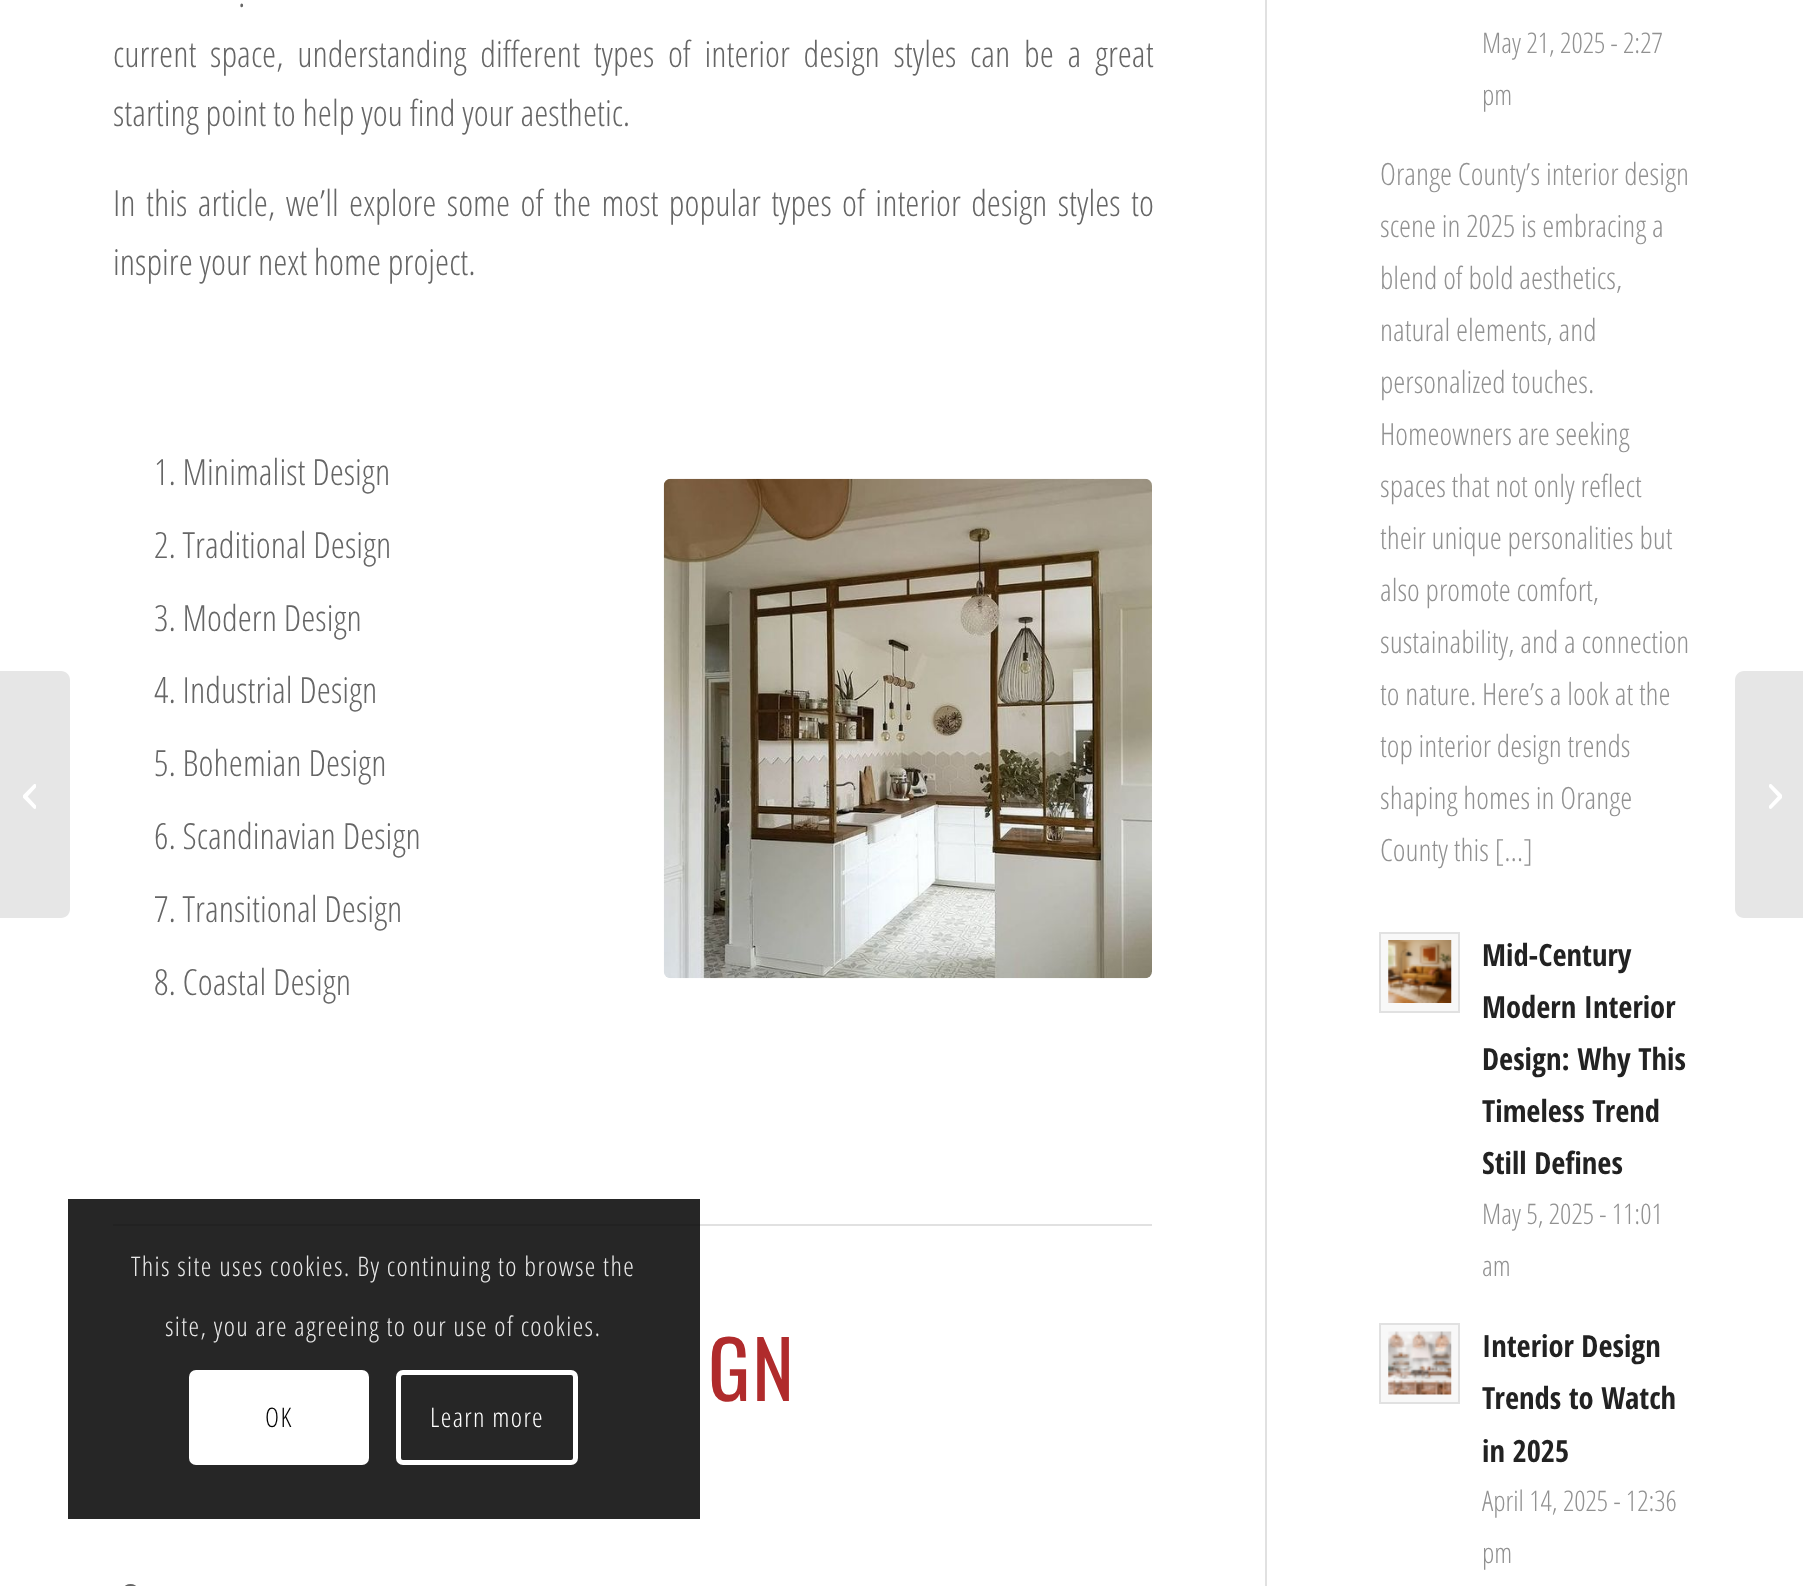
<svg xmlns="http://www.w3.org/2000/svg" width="1803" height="1586">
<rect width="100%" height="100%" fill="#fff"/>
<path d="M0 671h61c5 0 9 4 9 9v229c0 5-4 9-9 9h-61z" fill="#e6e6e6"/>
<image x="23" y="784" width="13" height="25" href="media/1.png"/>
<rect x="1265" width="2" height="1586" fill="#e1e1e1"/>
<text x="238" y="7" word-spacing="3.6" style="font-family:Open Sans Condensed;font-size:36px;font-weight:300;fill:#666">.</text>
<text x="113" y="67" word-spacing="6.9" style="font-family:Open Sans Condensed;font-size:36px;font-weight:300;fill:#666">current space, understanding different types of interior design styles can be a great</text>
<text x="113" y="126" style="font-family:Open Sans Condensed;font-size:36px;font-weight:300;fill:#666">starting point to help you find your aesthetic.</text>
<text x="113" y="216" word-spacing="3.6" style="font-family:Open Sans Condensed;font-size:36px;font-weight:300;fill:#666">In this article, we’ll explore some of the most popular types of interior design styles to</text>
<text x="113" y="275" style="font-family:Open Sans Condensed;font-size:36px;font-weight:300;fill:#666">inspire your next home project.</text>
<text x="154" y="485" style="font-family:Open Sans Condensed;font-size:36px;font-weight:300;fill:#666">1. Minimalist Design</text>
<text x="154" y="558" style="font-family:Open Sans Condensed;font-size:36px;font-weight:300;fill:#666">2. Traditional Design</text>
<text x="154" y="631" style="font-family:Open Sans Condensed;font-size:36px;font-weight:300;fill:#666">3. Modern Design</text>
<text x="154" y="703" style="font-family:Open Sans Condensed;font-size:36px;font-weight:300;fill:#666">4. Industrial Design</text>
<text x="154" y="776" style="font-family:Open Sans Condensed;font-size:36px;font-weight:300;fill:#666">5. Bohemian Design</text>
<text x="154" y="849" style="font-family:Open Sans Condensed;font-size:36px;font-weight:300;fill:#666">6. Scandinavian Design</text>
<text x="154" y="922" style="font-family:Open Sans Condensed;font-size:36px;font-weight:300;fill:#666">7. Transitional Design</text>
<text x="154" y="995" style="font-family:Open Sans Condensed;font-size:36px;font-weight:300;fill:#666">8. Coastal Design</text>
<image x="663" y="478" width="489" height="501" href="media/2.png"/>
<rect x="113" y="1224" width="1039" height="2" fill="#e1e1e1"/>
<text x="708" y="1401" style="font-family:Oswald;font-size:79px;letter-spacing:2px;fill:#b02b2c">GN</text>
<rect x="124" y="1584" width="13" height="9" rx="6.5" fill="#666"/>
<text x="1482" y="53" style="font-family:Open Sans Condensed;font-size:28.25px;font-weight:300;fill:#919191">May 21, 2025 - 2:27</text>
<text x="1482" y="105" style="font-family:Open Sans Condensed;font-size:28.25px;font-weight:300;fill:#919191">pm</text>
<text x="1380" y="185" style="font-family:Open Sans Condensed;font-size:30.6px;font-weight:300;fill:#919191">Orange County’s interior design</text>
<text x="1380" y="237" style="font-family:Open Sans Condensed;font-size:30.6px;font-weight:300;fill:#919191">scene in 2025 is embracing a</text>
<text x="1380" y="289" style="font-family:Open Sans Condensed;font-size:30.6px;font-weight:300;fill:#919191">blend of bold aesthetics,</text>
<text x="1380" y="341" style="font-family:Open Sans Condensed;font-size:30.6px;font-weight:300;fill:#919191">natural elements, and</text>
<text x="1380" y="393" style="font-family:Open Sans Condensed;font-size:30.6px;font-weight:300;fill:#919191">personalized touches.</text>
<text x="1380" y="445" style="font-family:Open Sans Condensed;font-size:30.6px;font-weight:300;fill:#919191">Homeowners are seeking</text>
<text x="1380" y="497" style="font-family:Open Sans Condensed;font-size:30.6px;font-weight:300;fill:#919191">spaces that not only reflect</text>
<text x="1380" y="549" style="font-family:Open Sans Condensed;font-size:30.6px;font-weight:300;fill:#919191">their unique personalities but</text>
<text x="1380" y="601" style="font-family:Open Sans Condensed;font-size:30.6px;font-weight:300;fill:#919191">also promote comfort,</text>
<text x="1380" y="653" style="font-family:Open Sans Condensed;font-size:30.6px;font-weight:300;fill:#919191">sustainability, and a connection</text>
<text x="1380" y="705" style="font-family:Open Sans Condensed;font-size:30.6px;font-weight:300;fill:#919191">to nature. Here’s a look at the</text>
<text x="1380" y="757" style="font-family:Open Sans Condensed;font-size:30.6px;font-weight:300;fill:#919191">top interior design trends</text>
<text x="1380" y="809" style="font-family:Open Sans Condensed;font-size:30.6px;font-weight:300;fill:#919191">shaping homes in Orange</text>
<text x="1380" y="861" style="font-family:Open Sans Condensed;font-size:30.6px;font-weight:300;fill:#919191">County this […]</text>
<rect x="1380" y="933" width="79" height="79" fill="#f8f8f8" stroke="#e1e1e1" stroke-width="2"/>
<image x="1388" y="940" width="64" height="63" href="media/3.png"/>
<text x="1482" y="966" style="font-family:Open Sans Condensed;font-size:30.6px;font-weight:bold;fill:#222">Mid-Century</text>
<text x="1482" y="1018" style="font-family:Open Sans Condensed;font-size:30.6px;font-weight:bold;fill:#222">Modern Interior</text>
<text x="1482" y="1070" style="font-family:Open Sans Condensed;font-size:30.6px;font-weight:bold;fill:#222">Design: Why This</text>
<text x="1482" y="1122" style="font-family:Open Sans Condensed;font-size:30.6px;font-weight:bold;fill:#222">Timeless Trend</text>
<text x="1482" y="1174" style="font-family:Open Sans Condensed;font-size:30.6px;font-weight:bold;fill:#222">Still Defines</text>
<text x="1482" y="1224" style="font-family:Open Sans Condensed;font-size:28.25px;font-weight:300;fill:#919191">May 5, 2025 - 11:01</text>
<text x="1482" y="1276" style="font-family:Open Sans Condensed;font-size:28.25px;font-weight:300;fill:#919191">am</text>
<rect x="1380" y="1324" width="79" height="79" fill="#f8f8f8" stroke="#e1e1e1" stroke-width="2"/>
<image x="1388" y="1331" width="64" height="64" href="media/4.png"/>
<text x="1482" y="1357" style="font-family:Open Sans Condensed;font-size:30.6px;font-weight:bold;fill:#222">Interior Design</text>
<text x="1482" y="1409" style="font-family:Open Sans Condensed;font-size:30.6px;font-weight:bold;fill:#222">Trends to Watch</text>
<text x="1482" y="1462" style="font-family:Open Sans Condensed;font-size:30.6px;font-weight:bold;fill:#222">in 2025</text>
<text x="1482" y="1511" style="font-family:Open Sans Condensed;font-size:28.25px;font-weight:300;fill:#919191">April 14, 2025 - 12:36</text>
<text x="1482" y="1563" style="font-family:Open Sans Condensed;font-size:28.25px;font-weight:300;fill:#919191">pm</text>
<path d="M1744 671h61v247h-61c-5 0-9-4-9-9v-229c0-5 4-9 9-9z" fill="#e6e6e6"/>
<image x="1769" y="784" width="13" height="25" href="media/5.png"/>
<rect x="68" y="1199" width="632" height="320" fill="#000000d9"/>
<text x="131" y="1276" style="font-family:Open Sans Condensed;font-size:27px;font-weight:300;letter-spacing:1.35px;fill:#e9e9e9">This site uses cookies. By continuing to browse the</text>
<text x="165" y="1336" style="font-family:Open Sans Condensed;font-size:27px;font-weight:300;letter-spacing:1.35px;fill:#e9e9e9">site, you are agreeing to our use of cookies.</text>
<rect x="189" y="1370" width="180" height="95" rx="7" fill="#fff"/>
<text x="265" y="1427" style="font-family:Open Sans Condensed;font-size:27px;font-weight:300;letter-spacing:1.35px;fill:#000">OK</text>
<rect x="398.5" y="1372.5" width="177" height="90" rx="4.5" fill="none" stroke="#fff" stroke-width="5"/>
<text x="430" y="1427" style="font-family:Open Sans Condensed;font-size:27px;font-weight:300;letter-spacing:1.35px;fill:#fff">Learn more</text>
</svg>
